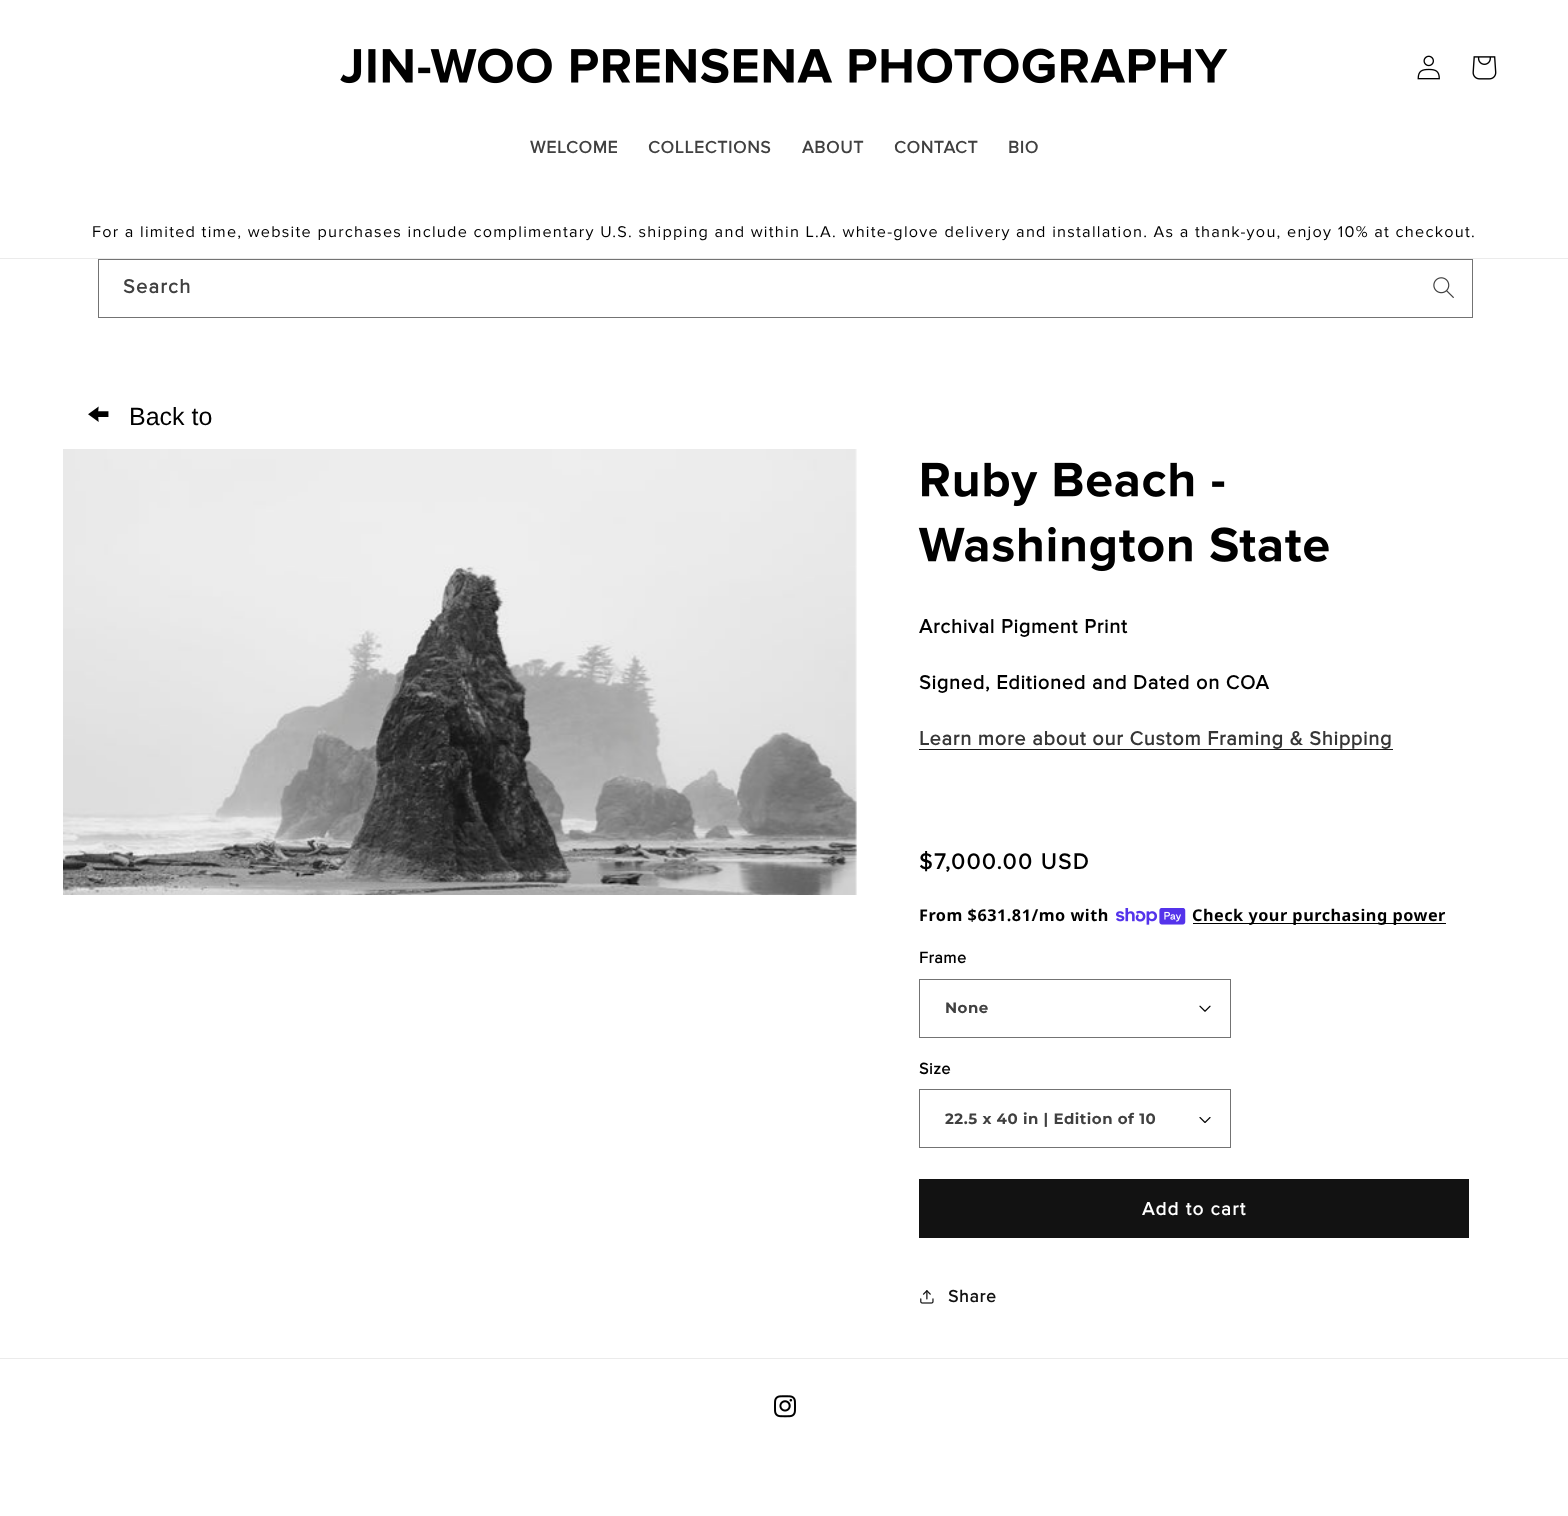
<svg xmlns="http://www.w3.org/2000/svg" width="1568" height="1516">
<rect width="100%" height="100%" fill="#fff"/>
<image x="340" y="48" width="888" height="36" href="media/1.png"/>
<image x="1417" y="55" width="23" height="25" href="media/2.png"/>
<image x="1472" y="56" width="25" height="24" href="media/3.png"/>
<text x="530" y="153" style="font-family:Proxima Nova;font-size:17.5px;font-weight:bold;letter-spacing:0.75px;fill:#404040">WELCOME</text>
<text x="648" y="153" style="font-family:Proxima Nova;font-size:17.5px;font-weight:bold;letter-spacing:0.75px;fill:#404040">COLLECTIONS</text>
<text x="802" y="153" style="font-family:Proxima Nova;font-size:17.5px;font-weight:bold;letter-spacing:0.75px;fill:#404040">ABOUT</text>
<text x="894" y="153" style="font-family:Proxima Nova;font-size:17.5px;font-weight:bold;letter-spacing:0.75px;fill:#404040">CONTACT</text>
<text x="1008" y="153" style="font-family:Proxima Nova;font-size:17.5px;font-weight:bold;letter-spacing:0.75px;fill:#404040">BIO</text>
<rect y="258" width="1568" height="1" fill="#ebebeb"/>
<text x="92" y="237" style="font-family:Proxima Nova;font-size:16.25px;letter-spacing:1.25px;fill:#000">For a limited time, website purchases include complimentary U.S. shipping and within L.A. white-glove delivery and installation. As a thank-you, enjoy 10% at checkout.</text>
<image x="1433" y="277" width="21" height="21" href="media/4.png"/>
<rect x="98.5" y="259.5" width="1374" height="58" fill="none" stroke="#737373"/>
<text x="123" y="293" style="font-family:Proxima Nova;font-size:20px;font-weight:bold;letter-spacing:1.25px;fill:#404040">Search</text>
<text x="88" y="425" style="font-family:Proxima Nova;font-size:38px;fill:#000">←</text>
<text x="129" y="425" style="font-family:Liberation Sans;font-size:25px;fill:#000">Back to</text>
<image x="63" y="449" width="794" height="446" href="media/5.png"/>
<image x="922" y="462" width="303" height="45" href="media/6.png"/>
<image x="918" y="527" width="411" height="45" href="media/7.png"/>
<text x="919" y="633" style="font-family:Proxima Nova;font-size:20px;font-weight:bold;letter-spacing:0.75px;fill:#000">Archival Pigment Print</text>
<text x="919" y="689" style="font-family:Proxima Nova;font-size:20px;font-weight:bold;letter-spacing:0.75px;fill:#000">Signed, Editioned and Dated on COA</text>
<text x="919" y="745" style="font-family:Proxima Nova;font-size:20px;font-weight:bold;letter-spacing:0.75px;fill:#363636">Learn more about our Custom Framing &amp; Shipping</text>
<rect x="919" y="749" width="474" height="1" fill="#171717"/>
<text x="919" y="869" style="font-family:Proxima Nova;font-size:22.5px;font-weight:bold;letter-spacing:1.6px;fill:#000">$7,000.00 USD</text>
<text x="919" y="921" style="font-family:Noto Sans;font-size:16.25px;font-weight:bold;letter-spacing:0.5px;fill:#000">From $631.81/mo with</text>
<image x="1116" y="908" width="70" height="17" href="media/8.png"/>
<rect x="1193" y="923" width="253" height="1" fill="#000"/>
<text x="1192" y="921" style="font-family:Noto Sans;font-size:16.25px;font-weight:bold;letter-spacing:0.5px;fill:#000">Check your purchasing power</text>
<text x="919" y="963" style="font-family:Proxima Nova;font-size:16.25px;font-weight:bold;letter-spacing:0.5px;fill:#000">Frame</text>
<image x="1199" y="1005" width="12" height="7" href="media/9.png"/>
<rect x="919.5" y="979.5" width="311" height="58" fill="none" stroke="#737373"/>
<text x="945" y="1013" style="font-family:Montserrat;font-size:15px;font-weight:bold;letter-spacing:0.5px;fill:#404040">None</text>
<text x="919" y="1074" style="font-family:Proxima Nova;font-size:16.25px;font-weight:bold;letter-spacing:0.5px;fill:#000">Size</text>
<image x="1199" y="1117" width="12" height="6" href="media/10.png"/>
<rect x="919.5" y="1089.5" width="311" height="58" fill="none" stroke="#737373"/>
<text x="945" y="1124" style="font-family:Montserrat;font-size:15px;font-weight:bold;letter-spacing:0.5px;fill:#404040">22.5 x 40 in | Edition of 10</text>
<rect x="919" y="1179" width="550" height="59" fill="#121212"/>
<text x="1142" y="1215" style="font-family:Proxima Nova;font-size:18.75px;font-weight:bold;letter-spacing:1.25px;fill:#fff">Add to cart</text>
<image x="920" y="1290" width="14" height="14" href="media/11.png"/>
<text x="948" y="1302" style="font-family:Proxima Nova;font-size:17.5px;font-weight:bold;letter-spacing:0.75px;fill:#121212">Share</text>
<rect y="1358" width="1568" height="1" fill="#ebebeb"/>
<image x="774" y="1395" width="22" height="23" href="media/12.png"/>
</svg>
